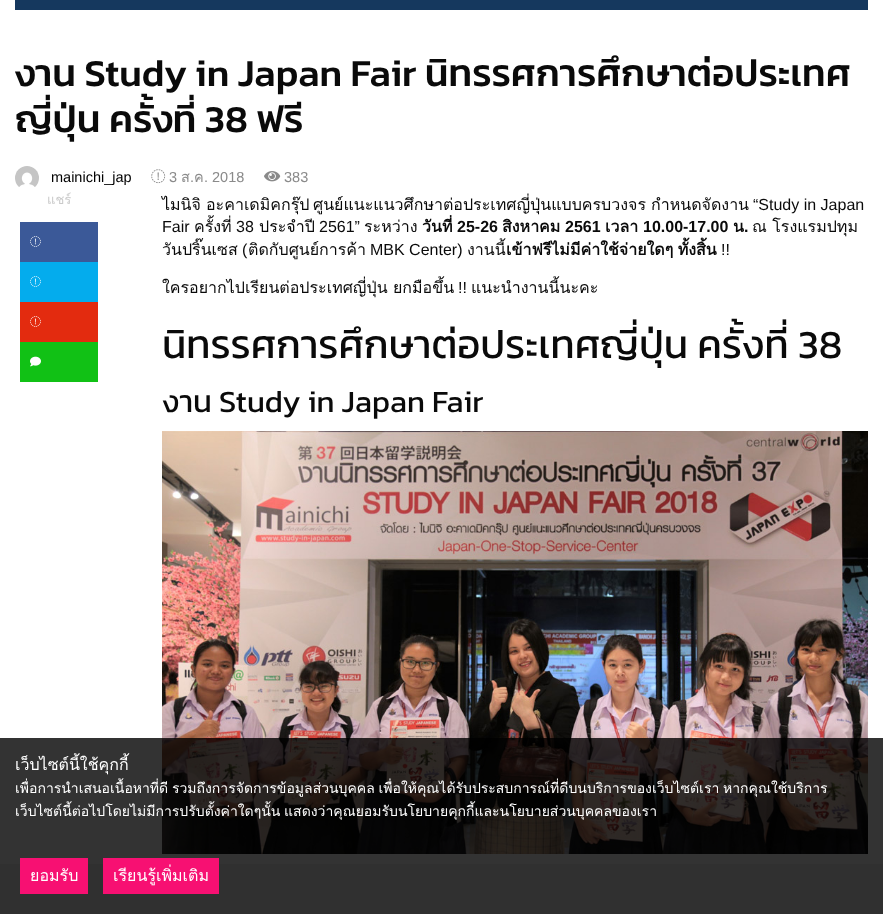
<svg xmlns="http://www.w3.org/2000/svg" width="883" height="914">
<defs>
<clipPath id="clip1"><rect x="15" y="42" width="853" height="108"/></clipPath>
</defs>
<rect width="100%" height="100%" fill="#fff"/>
<rect x="15" width="853" height="10" fill="#15385e"/>
<text x="15" y="86" style="font-family:Kanit;font-size:38.4px;font-weight:500;fill:#0a0a0a">งาน Study in Japan Fair นิทรรศการศึกษาต่อประเทศ</text>
<g clip-path="url(#clip1)">
<text x="15" y="132" style="font-family:Kanit;font-size:38.4px;font-weight:500;fill:#0a0a0a">ญี่ปุ่น ครั้งที่ 38 ฟรี</text>
</g>
<image x="15" y="166" width="24" height="21" href="media/1.png"/>
<text x="51" y="182" style="font-family:Liberation Sans;font-size:14.5px;fill:#000">mainichi_jap</text>
<image x="151" y="169" width="15" height="15" href="media/2.png"/>
<text x="169" y="182" style="font-family:Liberation Sans;font-size:14.5px;fill:#8a8a8a">3</text>
<text x="181" y="182" style="font-family:Loma;font-size:14.5px;fill:#8a8a8a">ส</text>
<text x="190" y="182" style="font-family:Liberation Sans;font-size:14.5px;fill:#8a8a8a">.</text>
<text x="194" y="182" style="font-family:Loma;font-size:14.5px;fill:#8a8a8a">ค</text>
<text x="204" y="182" style="font-family:Liberation Sans;font-size:14.5px;fill:#8a8a8a">. 2018</text>
<image x="264" y="171" width="17" height="11" href="media/3.png"/>
<text x="284" y="182" style="font-family:Liberation Sans;font-size:14.5px;fill:#8a8a8a">383</text>
<text x="47" y="204" style="font-family:Loma;font-size:13px;fill:#cacaca">แชร์</text>
<rect x="20" y="222" width="78" height="40" fill="#3b5998"/>
<image x="30" y="236" width="11" height="11" href="media/4.png"/>
<rect x="20" y="262" width="78" height="40" fill="#04aced"/>
<image x="30" y="276" width="11" height="11" href="media/5.png"/>
<rect x="20" y="302" width="78" height="40" fill="#e32b0f"/>
<image x="30" y="316" width="11" height="11" href="media/6.png"/>
<rect x="20" y="342" width="78" height="40" fill="#11c115"/>
<image x="30" y="356" width="11" height="11" href="media/7.png"/>
<text x="162" y="210" style="font-family:Loma;font-size:16px;fill:#0a0a0a">ไมนิจิ</text>
<text x="206" y="210" style="font-family:Loma;font-size:16px;fill:#0a0a0a">อะคาเดมิคกรุ๊ป</text>
<text x="313" y="210" style="font-family:Loma;font-size:16px;fill:#0a0a0a">ศูนย์แนะแนวศึกษาต่อประเทศญี่ปุ่นแบบครบวงจร</text>
<text x="651" y="210" style="font-family:Loma;font-size:16px;fill:#0a0a0a">กำหนดจัดงาน</text>
<text x="753" y="210" style="font-family:Liberation Sans;font-size:16px;fill:#0a0a0a">“Study in Japan</text>
<text x="162" y="232" style="font-family:Liberation Sans;font-size:16px;fill:#0a0a0a">Fair</text>
<text x="194" y="232" style="font-family:Loma;font-size:16px;fill:#0a0a0a">ครั้งที่</text>
<text x="236" y="232" style="font-family:Liberation Sans;font-size:16px;fill:#0a0a0a">38</text>
<text x="259" y="232" style="font-family:Loma;font-size:16px;fill:#0a0a0a">ประจำปี</text>
<text x="319" y="232" style="font-family:Liberation Sans;font-size:16px;fill:#0a0a0a">2561”</text>
<text x="364" y="232" style="font-family:Loma;font-size:16px;fill:#0a0a0a">ระหว่าง</text>
<text x="422" y="232" style="font-family:Loma;font-size:16px;font-weight:bold;fill:#0a0a0a">วันที่</text>
<text x="457" y="232" style="font-family:Liberation Sans;font-size:16px;font-weight:bold;fill:#0a0a0a">25-26</text>
<text x="502" y="232" style="font-family:Loma;font-size:16px;font-weight:bold;fill:#0a0a0a">สิงหาคม</text>
<text x="565" y="232" style="font-family:Liberation Sans;font-size:16px;font-weight:bold;fill:#0a0a0a">2561</text>
<text x="605" y="232" style="font-family:Loma;font-size:16px;font-weight:bold;fill:#0a0a0a">เวลา</text>
<text x="643" y="232" style="font-family:Liberation Sans;font-size:16px;font-weight:bold;fill:#0a0a0a">10.00-17.00</text>
<text x="733" y="232" style="font-family:Loma;font-size:16px;font-weight:bold;fill:#0a0a0a">น</text>
<text x="744" y="232" style="font-family:Liberation Sans;font-size:16px;font-weight:bold;fill:#0a0a0a">.</text>
<text x="752" y="232" style="font-family:Loma;font-size:16px;fill:#0a0a0a">ณ โรงแรมปทุม</text>
<text x="162" y="255" style="font-family:Loma;font-size:16px;fill:#0a0a0a">วันปริ๊นเซส</text>
<text x="242" y="255" style="font-family:Liberation Sans;font-size:16px;fill:#0a0a0a">(</text>
<text x="248" y="255" style="font-family:Loma;font-size:16px;fill:#0a0a0a">ติดกับศูนย์การค้า</text>
<text x="467" y="255" style="font-family:Loma;font-size:16px;fill:#0a0a0a">งานนี้</text>
<text x="506" y="255" word-spacing="-1" style="font-family:Loma;font-size:16px;font-weight:bold;fill:#0a0a0a">เข้าฟรีไม่มีค่าใช้จ่ายใดๆ ทั้งสิ้น</text>
<text x="370" y="255" style="font-family:Liberation Sans;font-size:16px;fill:#0a0a0a">MBK Center)</text>
<text x="721" y="255" style="font-family:Liberation Sans;font-size:16px;fill:#0a0a0a">!!</text>
<text x="162" y="293" style="font-family:Loma;font-size:16px;fill:#0a0a0a">ใครอยากไปเรียนต่อประเทศญี่ปุ่น ยกมือขึ้น</text>
<text x="458" y="293" style="font-family:Liberation Sans;font-size:16px;fill:#0a0a0a">!!</text>
<text x="471" y="293" style="font-family:Loma;font-size:16px;fill:#0a0a0a">แนะนำงานนี้นะคะ</text>
<text x="162" y="358" style="font-family:Kanit;font-size:40px;fill:#0a0a0a">นิทรรศการศึกษาต่อประเทศญี่ปุ่น ครั้งที่ 38</text>
<text x="162" y="412" style="font-family:Kanit;font-size:31px;fill:#0a0a0a">งาน Study in Japan Fair</text>
<image x="162" y="431" width="706" height="423" href="media/8.png"/>
<rect y="864" width="883" height="50" fill="#f0eeee"/>
<rect y="738" width="883" height="176" fill="#000000cc"/>
<text x="15" y="770" style="font-family:Loma;font-size:16px;fill:#fff">เว็บไซต์นี้ใช้คุกกี้</text>
<text x="15" y="793" word-spacing="-1" style="font-family:Loma;font-size:14px;fill:#fff">เพื่อการนำเสนอเนื้อหาที่ดี รวมถึงการจัดการข้อมูลส่วนบุคคล เพื่อให้คุณได้รับประสบการณ์ที่ดีบนบริการของเว็บไซต์เรา หากคุณใช้บริการ</text>
<text x="15" y="816" word-spacing="-1" style="font-family:Loma;font-size:14px;fill:#fff">เว็บไซต์นี้ต่อไปโดยไม่มีการปรับตั้งค่าใดๆนั้น แสดงว่าคุณยอมรับนโยบายคุกกี้และนโยบายส่วนบุคคลของเรา</text>
<rect x="20" y="858" width="68" height="36" fill="#f71072"/>
<text x="30" y="881" style="font-family:Loma;font-size:16px;fill:#fff">ยอมรับ</text>
<rect x="103" y="858" width="116" height="36" fill="#f71072"/>
<text x="113" y="881" style="font-family:Loma;font-size:16px;fill:#fff">เรียนรู้เพิ่มเติม</text>
</svg>
